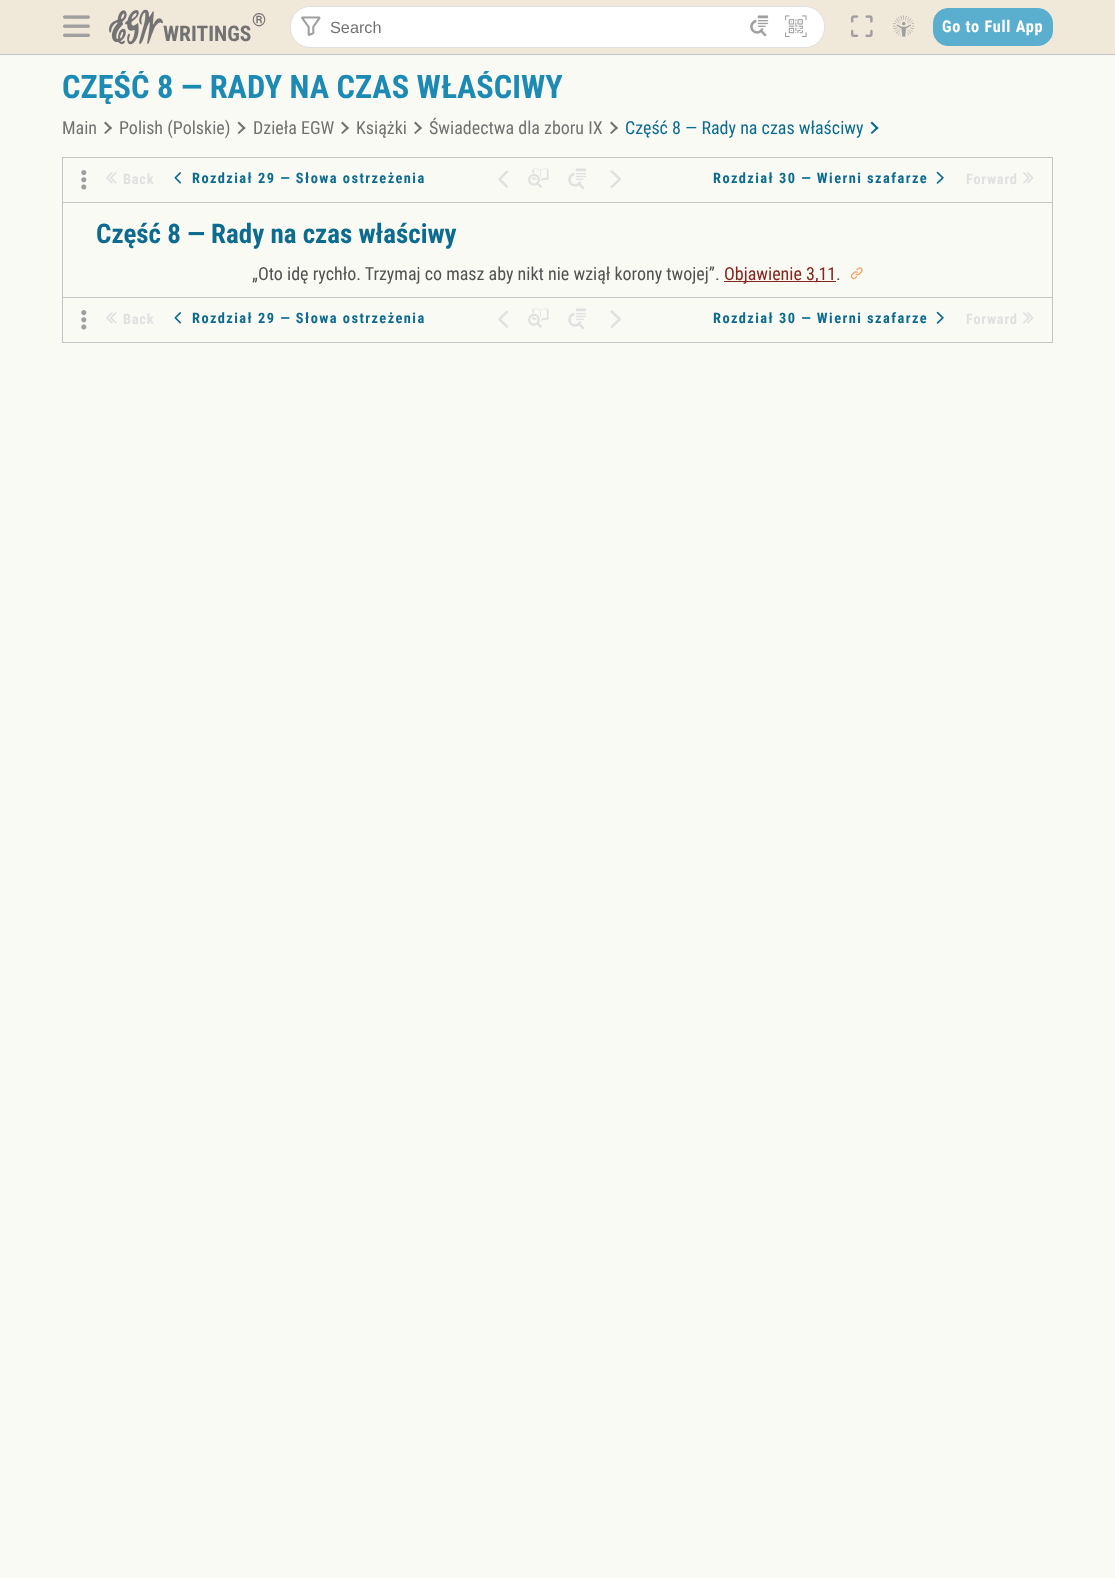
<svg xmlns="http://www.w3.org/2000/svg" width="1115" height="1578">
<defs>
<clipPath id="clip1"><rect x="62" y="71" width="500" height="33"/></clipPath>
</defs>
<rect width="100%" height="100%" fill="#fafaf5"/>
<rect width="1115" height="54" fill="#f0e8d9"/>
<rect y="54" width="1115" height="1" fill="#c4c4c4"/>
<image x="63" y="15" width="27" height="22" href="media/1.png"/>
<image x="109" y="9" width="54" height="36" href="media/2.png"/>
<text x="252" y="26" style="font-family:Roboto Condensed;font-size:18px;font-weight:bold;fill:#727272">®</text>
<text x="163" y="41" style="font-family:Roboto Condensed;font-size:21.5px;font-weight:bold;fill:#727272">WRITINGS</text>
<rect x="290.5" y="6.5" width="534" height="41" rx="19.5" fill="#fff" stroke="#e0e0e0"/>
<image x="301" y="16" width="20" height="20" href="media/3.png"/>
<text x="330" y="33" style="font-family:Liberation Sans;font-size:16.25px;fill:#727272">Search</text>
<image x="750" y="15" width="19" height="22" href="media/4.png"/>
<image x="785" y="15" width="22" height="22" href="media/5.png"/>
<image x="851" y="15" width="22" height="22" href="media/6.png"/>
<image x="893" y="15" width="22" height="22" href="media/7.png"/>
<rect x="933.5" y="8.5" width="119" height="37" rx="14.5" fill="#5aaece" stroke="#5aaece"/>
<text x="942" y="32" style="font-family:Roboto Condensed;font-size:16.25px;font-weight:bold;letter-spacing:0.75px;fill:#fff">Go to Full App</text>
<g clip-path="url(#clip1)">
<text x="62" y="98" style="font-family:Roboto Condensed;font-size:32.4px;font-weight:bold;fill:#1c8ab3">CZĘŚĆ 8 — RADY NA CZAS WŁAŚCIWY</text>
</g>
<text x="62" y="134" style="font-family:Roboto Condensed;font-size:18px;fill:#727272">Main</text>
<path d="M104 123l1.5-1.5l6.5 6.5l-1.5 1.5z" fill="#727272"/>
<path d="M104 133l6.5-6.5l1.5 1.5l-6.5 6z" fill="#727272"/>
<text x="119" y="134" style="font-family:Roboto Condensed;font-size:18px;fill:#727272">Polish (Polskie)</text>
<path d="M237.5 123l1.5-1.5l6.5 6.5l-1.5 1.5z" fill="#727272"/>
<path d="M237.5 133l6.5-6.5l1.5 1.5l-6.5 6z" fill="#727272"/>
<text x="253" y="134" style="font-family:Roboto Condensed;font-size:18px;fill:#727272">Dzieła EGW</text>
<path d="M341 123l1.5-1.5l6.5 6.5l-1.5 1.5z" fill="#727272"/>
<path d="M341 133l6.5-6.5l1.5 1.5l-6.5 6z" fill="#727272"/>
<text x="356" y="134" style="font-family:Roboto Condensed;font-size:18px;fill:#727272">Książki</text>
<path d="M414 123l1.5-1.5l6.5 6.5l-1.5 1.5z" fill="#727272"/>
<path d="M414 133l6.5-6.5l1.5 1.5l-6.5 6z" fill="#727272"/>
<text x="429" y="134" style="font-family:Roboto Condensed;font-size:18px;fill:#727272">Świadectwa dla zboru IX</text>
<path d="M610 123l1.5-1.5l6.5 6.5l-1.5 1.5z" fill="#727272"/>
<path d="M610 133l6.5-6.5l1.5 1.5l-6.5 6z" fill="#727272"/>
<text x="625" y="134" style="font-family:Roboto Condensed;font-size:18px;fill:#0c6b8f">Część 8 — Rady na czas właściwy</text>
<path d="M870.5 123l1.5-1.5l6.5 6.5l-1.5 1.5z" fill="#0c6b8f"/>
<path d="M870.5 133l6.5-6.5l1.5 1.5l-6.5 6z" fill="#0c6b8f"/>
<rect x="62.5" y="157.5" width="990" height="185" fill="none" stroke="#c4c4c4"/>
<rect x="63" y="202" width="989" height="1" fill="#c4c4c4"/>
<image x="81" y="170" width="6" height="20" href="media/8.png"/>
<image x="106" y="172" width="11" height="12" href="media/9.png"/>
<text x="123" y="184" style="font-family:Roboto Condensed;font-size:14.4px;font-weight:bold;letter-spacing:0.75px;fill:#e0e0e0">Back</text>
<image x="174" y="172" width="7" height="12" href="media/10.png"/>
<text x="192" y="183" style="font-family:Roboto Condensed;font-size:14.4px;font-weight:bold;letter-spacing:1.45px;fill:#0c6b8f">Rozdział 29 — Słowa ostrzeżenia</text>
<image x="498" y="170" width="10" height="18" href="media/11.png"/>
<image x="528" y="168" width="21" height="20" href="media/12.png"/>
<image x="568" y="168" width="18" height="21" href="media/13.png"/>
<image x="610" y="170" width="11" height="18" href="media/14.png"/>
<text x="713" y="183" style="font-family:Roboto Condensed;font-size:14.4px;font-weight:bold;letter-spacing:1.45px;fill:#0c6b8f">Rozdział 30 — Wierni szafarze</text>
<image x="936" y="171" width="8" height="13" href="media/15.png"/>
<text x="966" y="184" style="font-family:Roboto Condensed;font-size:14.4px;font-weight:bold;letter-spacing:0.75px;fill:#e0e0e0">Forward</text>
<image x="1023" y="172" width="11" height="12" href="media/16.png"/>
<text x="96" y="243" style="font-family:Roboto Condensed;font-size:27px;font-weight:bold;fill:#0c6b8f">Część 8 — Rady na czas właściwy</text>
<text x="252" y="280" style="font-family:Roboto Condensed;font-size:18px;fill:#525252">„Oto idę rychło. Trzymaj co masz aby nikt nie wziął korony twojej”.</text>
<rect x="724" y="281" width="112" height="1" fill="#85241e"/>
<text x="724" y="280" style="font-family:Roboto Condensed;font-size:18px;fill:#85241e">Objawienie 3,11</text>
<text x="836" y="280" style="font-family:Roboto Condensed;font-size:18px;fill:#525252">.</text>
<image x="850" y="267" width="13" height="13" href="media/17.png"/>
<rect x="63" y="297" width="989" height="1" fill="#c4c4c4"/>
<image x="81" y="310" width="6" height="20" href="media/8.png"/>
<image x="106" y="312" width="11" height="12" href="media/9.png"/>
<text x="123" y="324" style="font-family:Roboto Condensed;font-size:14.4px;font-weight:bold;letter-spacing:0.75px;fill:#e0e0e0">Back</text>
<image x="174" y="312" width="7" height="12" href="media/10.png"/>
<text x="192" y="323" style="font-family:Roboto Condensed;font-size:14.4px;font-weight:bold;letter-spacing:1.45px;fill:#0c6b8f">Rozdział 29 — Słowa ostrzeżenia</text>
<image x="498" y="310" width="10" height="18" href="media/11.png"/>
<image x="528" y="308" width="21" height="20" href="media/12.png"/>
<image x="568" y="308" width="18" height="21" href="media/13.png"/>
<image x="610" y="310" width="11" height="18" href="media/14.png"/>
<text x="713" y="323" style="font-family:Roboto Condensed;font-size:14.4px;font-weight:bold;letter-spacing:1.45px;fill:#0c6b8f">Rozdział 30 — Wierni szafarze</text>
<image x="936" y="311" width="8" height="13" href="media/15.png"/>
<text x="966" y="324" style="font-family:Roboto Condensed;font-size:14.4px;font-weight:bold;letter-spacing:0.75px;fill:#e0e0e0">Forward</text>
<image x="1023" y="312" width="11" height="12" href="media/16.png"/>
</svg>
